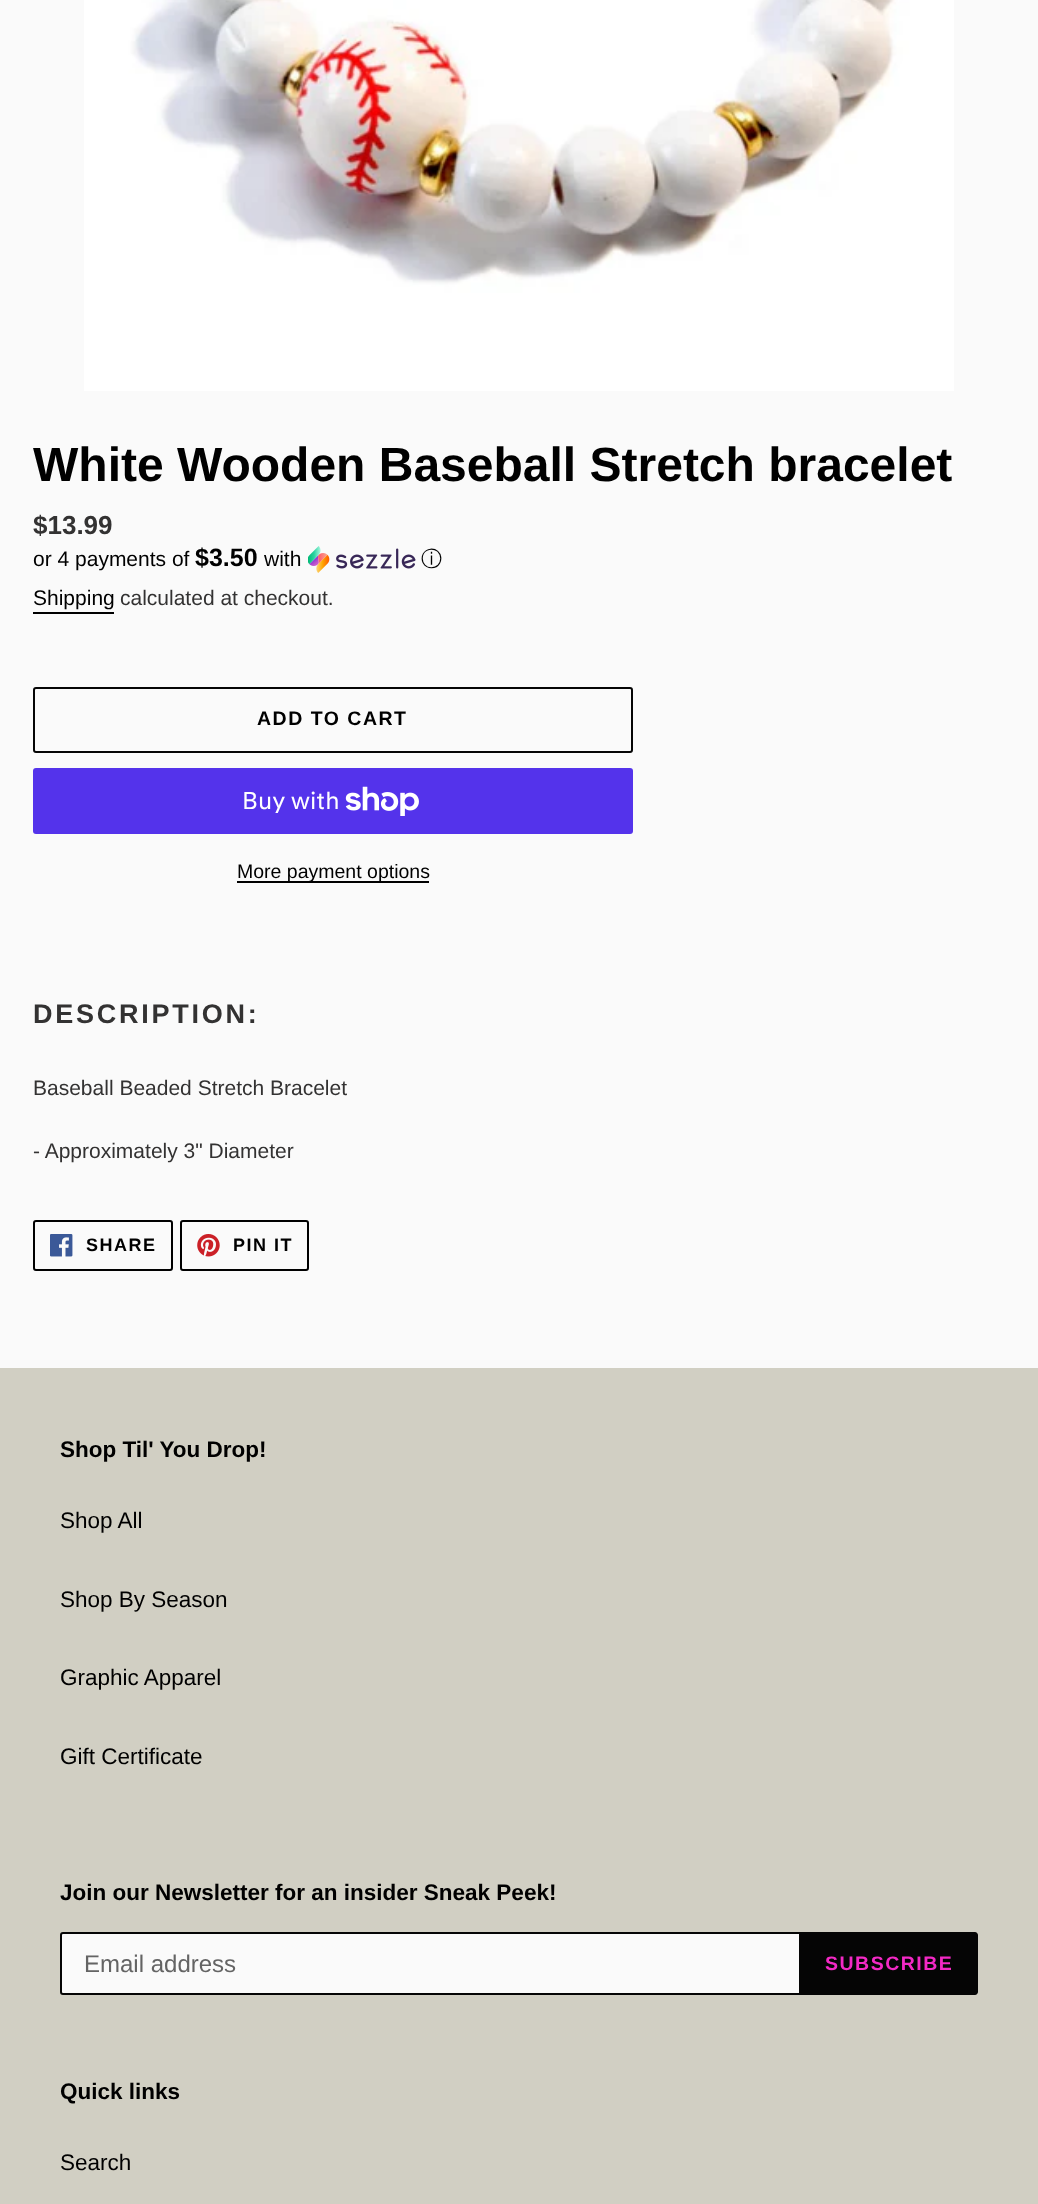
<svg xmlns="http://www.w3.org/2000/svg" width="1038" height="2204">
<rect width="100%" height="100%" fill="#fafafa"/>
<image x="84" y="0" width="870" height="391" href="media/1.png"/>
<text x="33" y="481" style="font-family:Liberation Sans;font-size:48px;font-weight:bold;fill:#000">White Wooden Baseball Stretch bracelet</text>
<text x="33" y="534" style="font-family:Liberation Sans;font-size:26px;font-weight:bold;fill:#333232">$13.99</text>
<text x="33" y="566" style="font-family:Liberation Sans;font-size:21px;fill:#000">or 4 payments of</text>
<text x="195" y="566" style="font-family:Liberation Sans;font-size:25px;font-weight:bold;fill:#000">$3.50</text>
<text x="264" y="566" style="font-family:Liberation Sans;font-size:21px;fill:#000">with</text>
<image x="308" y="546" width="108" height="27" href="media/2.png"/>
<text x="421" y="566" style="font-family:WenQuanYi Zen Hei;font-size:21px;font-weight:500;fill:#000">ⓘ</text>
<text x="33" y="605" style="font-family:Liberation Sans;font-size:21px;fill:#000">Shipping</text>
<rect x="33" y="612" width="81" height="2" fill="#000"/>
<text x="120" y="605" style="font-family:Liberation Sans;font-size:21px;fill:#333232">calculated at checkout.</text>
<rect x="34" y="688" width="598" height="64" rx="2" fill="none" stroke="#050505" stroke-width="2"/>
<text x="257" y="725" style="font-family:Liberation Sans;font-size:19.5px;font-weight:bold;letter-spacing:1.5px;fill:#000">ADD TO CART</text>
<rect x="33" y="768" width="600" height="66" rx="3" fill="#5433eb"/>
<text x="242" y="809" style="font-family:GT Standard;font-size:24px;fill:#fff">Buy with</text>
<image x="345" y="786" width="74" height="30" href="media/3.png"/>
<rect x="237" y="881" width="192" height="2" fill="#000"/>
<text x="237" y="878" style="font-family:Liberation Sans;font-size:19.5px;fill:#000">More payment options</text>
<text x="33" y="1023" style="font-family:Liberation Sans;font-size:27px;font-weight:bold;letter-spacing:2.75px;fill:#333232">DESCRIPTION:</text>
<text x="33" y="1095" style="font-family:Liberation Sans;font-size:21px;fill:#333232">Baseball Beaded Stretch Bracelet</text>
<text x="33" y="1158" style="font-family:Liberation Sans;font-size:21px;fill:#333232">- Approximately 3" Diameter</text>
<rect x="34" y="1221" width="138" height="49" rx="2" fill="none" stroke="#000" stroke-width="2"/>
<image x="50" y="1234" width="23" height="23" href="media/4.png"/>
<text x="86" y="1251" style="font-family:Liberation Sans;font-size:18px;font-weight:bold;letter-spacing:1.5px;fill:#000">SHARE</text>
<rect x="181" y="1221" width="127" height="49" rx="2" fill="none" stroke="#000" stroke-width="2"/>
<image x="197" y="1234" width="23" height="23" href="media/5.png"/>
<text x="233" y="1251" style="font-family:Liberation Sans;font-size:18px;font-weight:bold;letter-spacing:1.5px;fill:#000">PIN IT</text>
<rect y="1368" width="1038" height="836" fill="#d1cfc3"/>
<text x="60" y="1457" style="font-family:Liberation Sans;font-size:22.5px;font-weight:bold;fill:#000">Shop Til' You Drop!</text>
<text x="60" y="1528" style="font-family:Liberation Sans;font-size:22.5px;fill:#000">Shop All</text>
<text x="60" y="1607" style="font-family:Liberation Sans;font-size:22.5px;fill:#000">Shop By Season</text>
<text x="60" y="1685" style="font-family:Liberation Sans;font-size:22.5px;fill:#000">Graphic Apparel</text>
<text x="60" y="1764" style="font-family:Liberation Sans;font-size:22.5px;fill:#000">Gift Certificate</text>
<text x="60" y="1900" style="font-family:Liberation Sans;font-size:22.5px;font-weight:bold;fill:#000">Join our Newsletter for an insider Sneak Peek!</text>
<path d="M63 1933h737v61h-737c-1 0-2-1-2-2v-57c0-1 1-2 2-2z" fill="#fafafa" stroke="#050505" stroke-width="2"/>
<text x="84" y="1972" style="font-family:Liberation Sans;font-size:24px;fill:#646464">Email address</text>
<path d="M801 1932h174c1.5 0 3 1.5 3 3v57c0 1.5-1.5 3-3 3h-174z" fill="#050505"/>
<text x="825" y="1970" style="font-family:Liberation Sans;font-size:19.5px;font-weight:bold;letter-spacing:1.5px;fill:#f329c5">SUBSCRIBE</text>
<text x="60" y="2099" style="font-family:Liberation Sans;font-size:22.5px;font-weight:bold;fill:#000">Quick links</text>
<text x="60" y="2170" style="font-family:Liberation Sans;font-size:22.5px;fill:#000">Search</text>
</svg>
